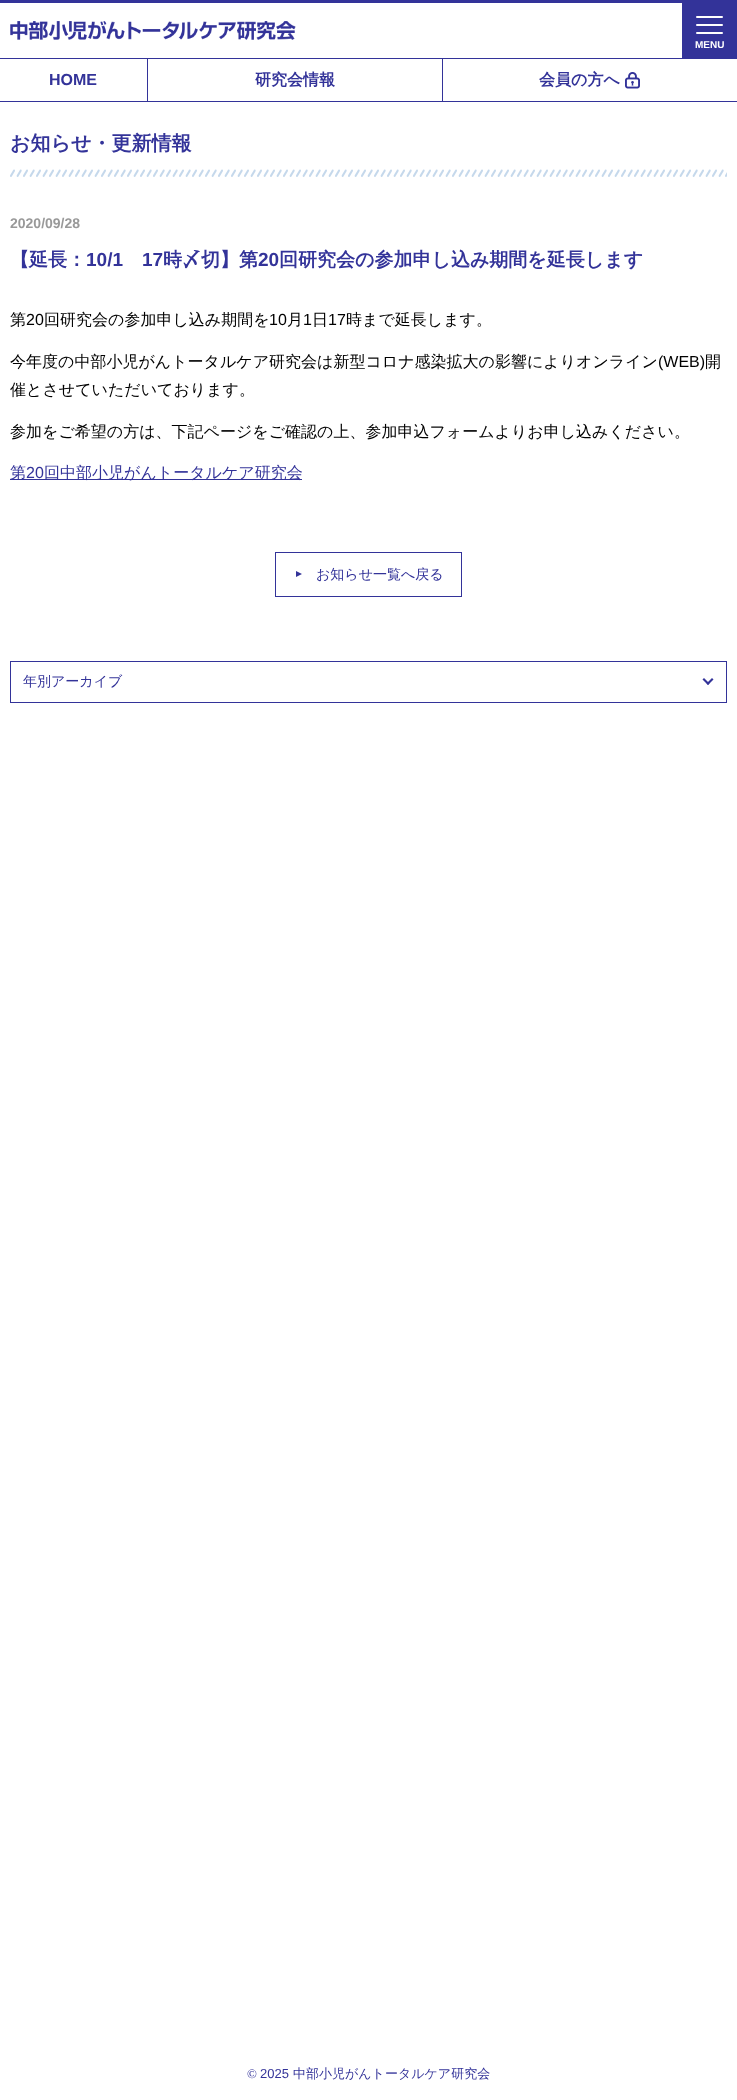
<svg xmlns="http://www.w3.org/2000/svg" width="737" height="2100">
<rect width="100%" height="100%" fill="#fff"/>
<rect width="737" height="3" fill="#339"/>
<image x="10" y="21" width="286" height="19" href="media/1.png"/>
<rect x="682" y="3" width="55" height="55" fill="#339"/>
<rect x="696" y="24" width="27" height="2" rx="1" fill="#fff"/>
<rect x="696" y="16" width="27" height="2" rx="1" fill="#fff"/>
<rect x="696" y="32" width="27" height="2" rx="1" fill="#fff"/>
<text x="695" y="48" style="font-family:Liberation Sans;font-size:10px;font-weight:bold;fill:#fff">MENU</text>
<rect y="58" width="737" height="1" fill="#339"/>
<rect y="101" width="737" height="1" fill="#339"/>
<rect x="147" y="59" width="1" height="42" fill="#339"/>
<text x="49" y="85" style="font-family:Liberation Sans;font-size:16px;font-weight:bold;fill:#339">HOME</text>
<rect x="442" y="59" width="1" height="42" fill="#339"/>
<text x="255" y="85" style="font-family:WenQuanYi Zen Hei;font-size:16px;font-weight:bold;fill:#339">研究会情報</text>
<text x="539" y="85" style="font-family:WenQuanYi Zen Hei;font-size:16px;font-weight:bold;fill:#339">会員の方へ</text>
<image x="625" y="72" width="15" height="17" href="media/2.png"/>
<image x="10" y="169" width="717" height="8" href="media/3.png"/>
<text x="10" y="150" style="font-family:WenQuanYi Zen Hei;font-size:20px;font-weight:bold;fill:#339">お知らせ・更新情報</text>
<text x="10" y="228" style="font-family:Liberation Sans;font-size:14px;font-weight:bold;fill:#999">2020/09/28</text>
<text x="10" y="266" style="font-family:WenQuanYi Zen Hei;font-size:19px;font-weight:bold;fill:#339">【延長：</text>
<text x="86" y="266" style="font-family:Liberation Sans;font-size:19px;font-weight:bold;fill:#339">10/1</text>
<text x="142" y="266" style="font-family:Liberation Sans;font-size:19px;font-weight:bold;fill:#339">17</text>
<text x="163" y="266" style="font-family:WenQuanYi Zen Hei;font-size:19px;font-weight:bold;fill:#339">時〆切】第</text>
<text x="258" y="266" style="font-family:Liberation Sans;font-size:19px;font-weight:bold;fill:#339">20</text>
<text x="279" y="266" style="font-family:WenQuanYi Zen Hei;font-size:19px;font-weight:bold;fill:#339">回研究会の参加申し込み期間を延長します</text>
<text x="10" y="325" style="font-family:WenQuanYi Zen Hei;font-size:16px;font-weight:500;fill:#000">第</text>
<text x="26" y="325" style="font-family:Liberation Sans;font-size:16px;fill:#000">20</text>
<text x="44" y="325" style="font-family:WenQuanYi Zen Hei;font-size:16px;font-weight:500;fill:#000">回研究会の参加申し込み期間を</text>
<text x="269" y="325" style="font-family:Liberation Sans;font-size:16px;fill:#000">10</text>
<text x="287" y="325" style="font-family:WenQuanYi Zen Hei;font-size:16px;font-weight:500;fill:#000">月</text>
<text x="303" y="325" style="font-family:Liberation Sans;font-size:16px;fill:#000">1</text>
<text x="312" y="325" style="font-family:WenQuanYi Zen Hei;font-size:16px;font-weight:500;fill:#000">日</text>
<text x="328" y="325" style="font-family:Liberation Sans;font-size:16px;fill:#000">17</text>
<text x="346" y="325" style="font-family:WenQuanYi Zen Hei;font-size:16px;font-weight:500;fill:#000">時まで延長します。</text>
<text x="10" y="367" style="font-family:WenQuanYi Zen Hei;font-size:16px;font-weight:500;fill:#000">今年度の中部小児がんトータルケア研究会は新型コロナ感染拡大の影響によりオンライン</text>
<text x="658" y="367" style="font-family:Liberation Sans;font-size:16px;fill:#000">(WEB)</text>
<text x="705" y="367" style="font-family:WenQuanYi Zen Hei;font-size:16px;font-weight:500;fill:#000">開</text>
<text x="10" y="395" style="font-family:WenQuanYi Zen Hei;font-size:16px;font-weight:500;fill:#000">催とさせていただいております。</text>
<text x="10" y="437" style="font-family:WenQuanYi Zen Hei;font-size:16px;font-weight:500;fill:#000">参加をご希望の方は、下記ページをご確認の上、参加申込フォームよりお申し込みください。</text>
<rect x="10" y="479" width="292" height="1" fill="#339"/>
<text x="10" y="478" style="font-family:WenQuanYi Zen Hei;font-size:16px;font-weight:500;fill:#339">第</text>
<text x="26" y="478" style="font-family:Liberation Sans;font-size:16px;fill:#339">20</text>
<text x="44" y="478" style="font-family:WenQuanYi Zen Hei;font-size:16px;font-weight:500;fill:#339">回中部小児がんトータルケア研究会</text>
<rect x="275.5" y="552.5" width="186" height="44" fill="none" stroke="#339"/>
<path d="M296 577v-6l6 3z" fill="#339"/>
<text x="316" y="579" style="font-family:WenQuanYi Zen Hei;font-size:14px;font-weight:500;fill:#339">お知らせ一覧へ戻る</text>
<rect x="10.5" y="661.5" width="716" height="41" fill="none" stroke="#339"/>
<text x="23" y="686" style="font-family:WenQuanYi Zen Hei;font-size:14px;font-weight:500;fill:#339">年別アーカイブ</text>
<path d="M712 678l1.5 1.5l-5.5 5.5l-1.5-1.5z" fill="#339"/>
<path d="M704 678l5.5 5.5l-1.5 1.5l-5.5-5.5z" fill="#339"/>
<text x="247" y="2078" style="font-family:Liberation Serif;font-size:13px;fill:#339">©</text>
<text x="260" y="2078" style="font-family:Liberation Sans;font-size:13px;fill:#339">2025</text>
<text x="293" y="2078" style="font-family:WenQuanYi Zen Hei;font-size:13px;font-weight:500;fill:#339">中部小児がんトータルケア研究会</text>
</svg>
